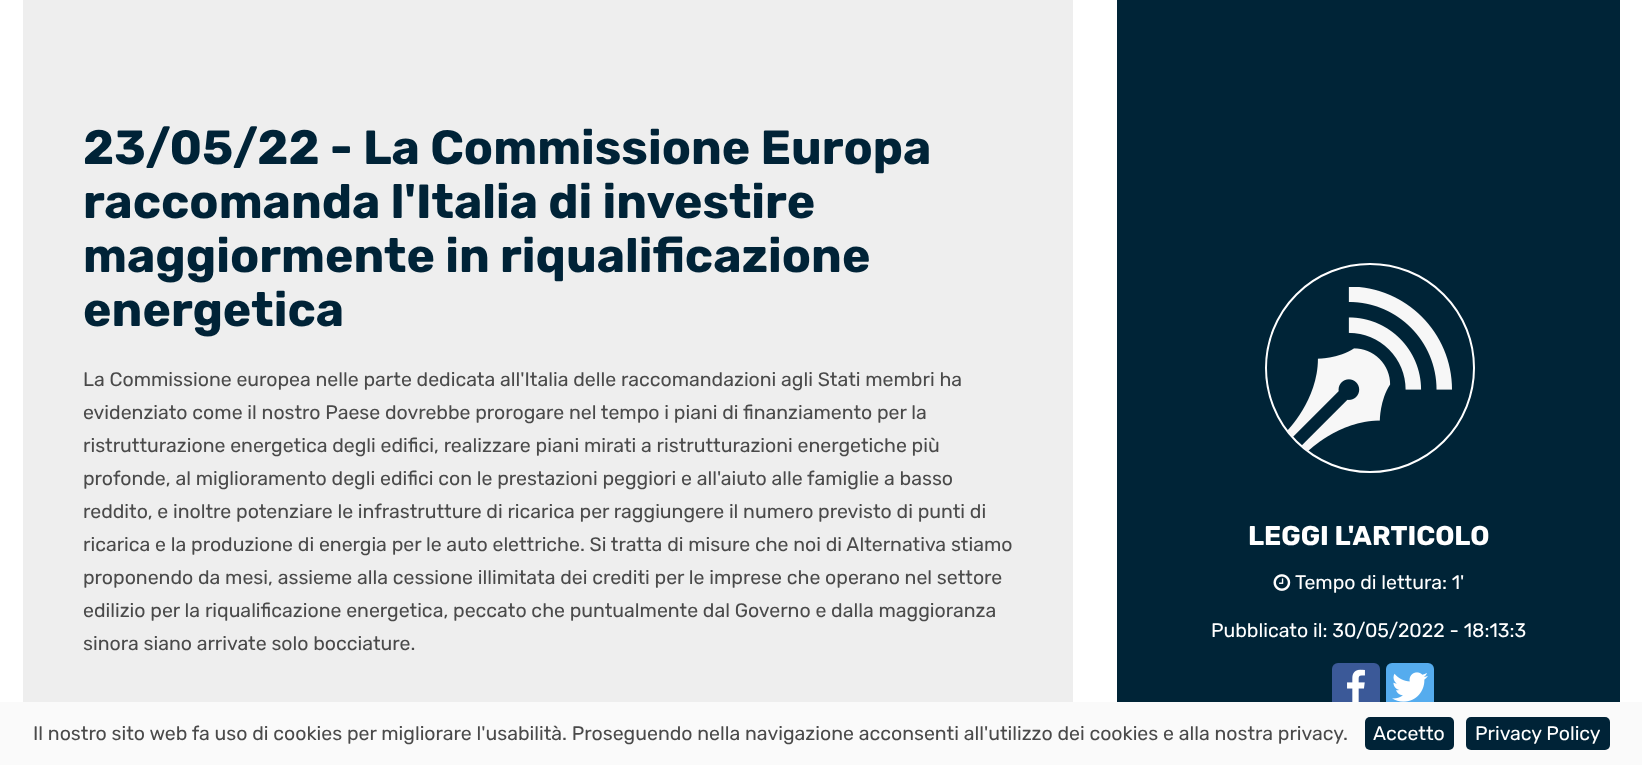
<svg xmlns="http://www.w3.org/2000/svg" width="1642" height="765">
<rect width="100%" height="100%" fill="#fff"/>
<rect x="23" width="1050" height="702" fill="#eee"/>
<text x="83" y="164" style="font-family:Rubik;font-size:48px;font-weight:bold;fill:#002337">23/05/22 - La Commissione Europa</text>
<text x="83" y="218" style="font-family:Rubik;font-size:48px;font-weight:bold;fill:#002337">raccomanda l'Italia di investire</text>
<text x="83" y="272" style="font-family:Rubik;font-size:48px;font-weight:bold;fill:#002337">maggiormente in riqualificazione</text>
<text x="83" y="326" style="font-family:Rubik;font-size:48px;font-weight:bold;fill:#002337">energetica</text>
<text x="83" y="386" style="font-family:Rubik;font-size:19.5px;fill:#4a4a4a">La Commissione europea nelle parte dedicata all'Italia delle raccomandazioni agli Stati membri ha</text>
<text x="83" y="419" style="font-family:Rubik;font-size:19.5px;fill:#4a4a4a">evidenziato come il nostro Paese dovrebbe prorogare nel tempo i piani di finanziamento per la</text>
<text x="83" y="452" style="font-family:Rubik;font-size:19.5px;fill:#4a4a4a">ristrutturazione energetica degli edifici, realizzare piani mirati a ristrutturazioni energetiche più</text>
<text x="83" y="485" style="font-family:Rubik;font-size:19.5px;fill:#4a4a4a">profonde, al miglioramento degli edifici con le prestazioni peggiori e all'aiuto alle famiglie a basso</text>
<text x="83" y="518" style="font-family:Rubik;font-size:19.5px;fill:#4a4a4a">reddito, e inoltre potenziare le infrastrutture di ricarica per raggiungere il numero previsto di punti di</text>
<text x="83" y="551" style="font-family:Rubik;font-size:19.5px;fill:#4a4a4a">ricarica e la produzione di energia per le auto elettriche. Si tratta di misure che noi di Alternativa stiamo</text>
<text x="83" y="584" style="font-family:Rubik;font-size:19.5px;fill:#4a4a4a">proponendo da mesi, assieme alla cessione illimitata dei crediti per le imprese che operano nel settore</text>
<text x="83" y="617" style="font-family:Rubik;font-size:19.5px;fill:#4a4a4a">edilizio per la riqualificazione energetica, peccato che puntualmente dal Governo e dalla maggioranza</text>
<text x="83" y="650" style="font-family:Rubik;font-size:19.5px;fill:#4a4a4a">sinora siano arrivate solo bocciature.</text>
<rect x="1117" width="503" height="702" fill="#002437"/>
<circle cx="1370" cy="368" r="104" fill="none" stroke="#fff" stroke-width="2"/>
<image x="1288" y="287" width="164" height="164" href="media/1.png"/>
<text x="1248" y="545" style="font-family:Rubik;font-size:27px;font-weight:bold;fill:#fff">LEGGI L'ARTICOLO</text>
<image x="1273" y="574" width="18" height="17" href="media/2.png"/>
<text x="1295" y="589" style="font-family:Rubik;font-size:19.5px;fill:#fff">Tempo di lettura: 1'</text>
<text x="1211" y="637" style="font-family:Rubik;font-size:19.5px;fill:#fff">Pubblicato il: 30/05/2022 - 18:13:3</text>
<rect x="1332" y="663" width="48" height="48" rx="6" fill="#3b5998"/>
<image x="1347" y="669" width="18" height="33" href="media/3.png"/>
<rect x="1386" y="663" width="48" height="48" rx="6" fill="#55acee"/>
<image x="1392" y="672" width="36" height="30" href="media/4.png"/>
<rect y="702" width="1642" height="63" fill="#fafafa"/>
<text x="33" y="740" style="font-family:Rubik;font-size:19.5px;fill:#4a4a4a">Il nostro sito web fa uso di cookies per migliorare l'usabilità. Proseguendo nella navigazione acconsenti all'utilizzo dei cookies e alla nostra privacy.</text>
<rect x="1365" y="717" width="89" height="33" rx="5" fill="#002337"/>
<text x="1373" y="740" style="font-family:Rubik;font-size:19.5px;fill:#fff">Accetto</text>
<rect x="1466" y="717" width="144" height="33" rx="5" fill="#002337"/>
<text x="1475" y="740" style="font-family:Rubik;font-size:19.5px;fill:#fff">Privacy Policy</text>
</svg>
